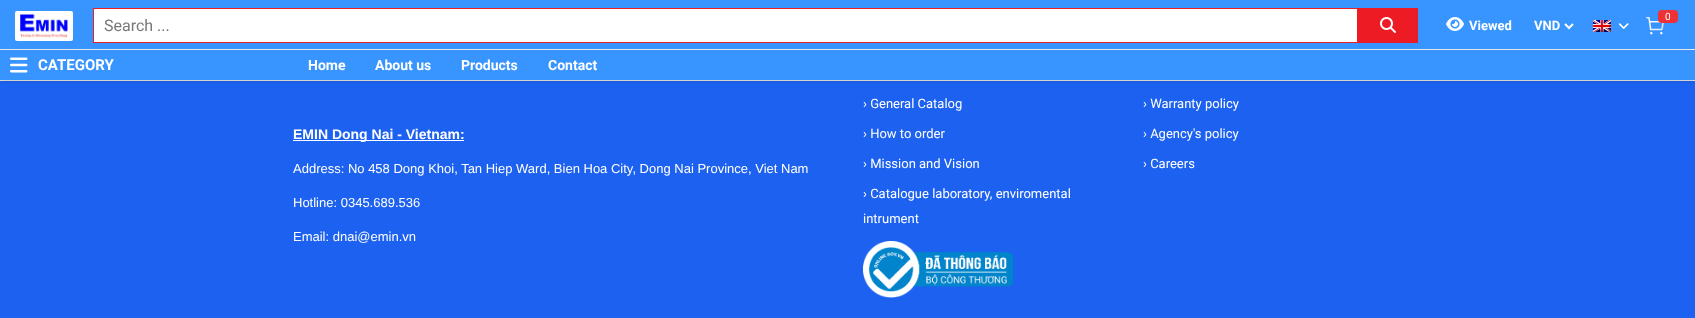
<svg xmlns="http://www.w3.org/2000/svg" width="1695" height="318">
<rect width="100%" height="100%" fill="#1d61f0"/>
<rect y="80" width="1695" height="1" fill="#e8e8e8"/>
<rect y="50" width="1695" height="30" fill="#00000036" filter="blur(2.5px)"/>
<rect width="1695" height="49" fill="#3894ff"/>
<rect y="49" width="1695" height="1" fill="#e7e7e7"/>
<rect x="15" y="11" width="58" height="30" rx="2" fill="#fff"/>
<image x="20" y="14" width="48" height="24" href="media/1.png"/>
<rect x="94" y="9" width="1263" height="33" fill="#fff"/>
<rect x="93" y="8" width="1265" height="1" fill="#ed1d25"/>
<rect x="1357" y="8" width="1" height="35" fill="#ed1d25"/>
<rect x="93" y="42" width="1265" height="1" fill="#ed1d25"/>
<rect x="93" y="8" width="1" height="35" fill="#ed1d25"/>
<text x="104" y="31" style="font-family:Roboto;font-size:16px;fill:#777">Search ...</text>
<rect x="1358" y="8" width="60" height="35" fill="#ed1c24"/>
<image x="1380" y="17" width="16" height="16" href="media/2.png"/>
<image x="1645" y="16" width="20" height="19" href="media/3.png"/>
<rect x="1658" y="10" width="20" height="13" rx="4" fill="#ed3237"/>
<text x="1665" y="20" style="font-family:Roboto;font-size:10px;fill:#fff">0</text>
<image x="1446" y="17" width="18" height="14" href="media/4.png"/>
<text x="1469" y="30" style="font-family:Roboto;font-size:13px;font-weight:bold;fill:#fff">Viewed</text>
<path d="M1565 24l4 4l4-4" fill="none" stroke="#fff" stroke-width="2"/>
<text x="1534" y="30" style="font-family:Roboto;font-size:13px;font-weight:bold;fill:#fff">VND</text>
<image x="1593" y="20" width="18" height="12" href="media/5.png"/>
<image x="1618" y="23" width="11" height="6" href="media/6.png"/>
<rect y="50" width="1695" height="30" fill="#3894ff"/>
<image x="10" y="57" width="18" height="16" href="media/7.png"/>
<text x="38" y="70" style="font-family:Roboto;font-size:15px;font-weight:bold;fill:#fff">CATEGORY</text>
<text x="308" y="70" style="font-family:Roboto;font-size:14px;font-weight:bold;fill:#fff">Home</text>
<text x="375" y="70" style="font-family:Roboto;font-size:14px;font-weight:bold;fill:#fff">About us</text>
<text x="461" y="70" style="font-family:Roboto;font-size:14px;font-weight:bold;fill:#fff">Products</text>
<text x="548" y="70" style="font-family:Roboto;font-size:14px;font-weight:bold;fill:#fff">Contact</text>
<rect x="293" y="140" width="171" height="1" fill="#fff"/>
<text x="293" y="139" style="font-family:Liberation Sans;font-size:14px;font-weight:bold;fill:#fff">EMIN Dong Nai - Vietnam:</text>
<text x="293" y="173" style="font-family:Liberation Sans;font-size:13px;fill:#fff">Address: No 458 Dong Khoi, Tan Hiep Ward, Bien Hoa City, Dong Nai Province, Viet Nam</text>
<text x="293" y="207" style="font-family:Liberation Sans;font-size:13px;fill:#fff">Hotline: 0345.689.536</text>
<text x="293" y="241" style="font-family:Liberation Sans;font-size:13px;fill:#fff">Email: dnai@emin.vn</text>
<text x="863" y="108" style="font-family:Roboto;font-size:13px;fill:#fff">› General Catalog</text>
<text x="1143" y="108" style="font-family:Roboto;font-size:13px;fill:#fff">› Warranty policy</text>
<text x="863" y="138" style="font-family:Roboto;font-size:13px;fill:#fff">› How to order</text>
<text x="1143" y="138" style="font-family:Roboto;font-size:13px;fill:#fff">› Agency's policy</text>
<text x="863" y="168" style="font-family:Roboto;font-size:13px;fill:#fff">› Mission and Vision</text>
<text x="1143" y="168" style="font-family:Roboto;font-size:13px;fill:#fff">› Careers</text>
<text x="863" y="198" style="font-family:Roboto;font-size:13px;fill:#fff">› Catalogue laboratory, enviromental</text>
<text x="863" y="223" style="font-family:Roboto;font-size:13px;fill:#fff">intrument</text>
<image x="863" y="241" width="150" height="57" href="media/8.png"/>
</svg>
